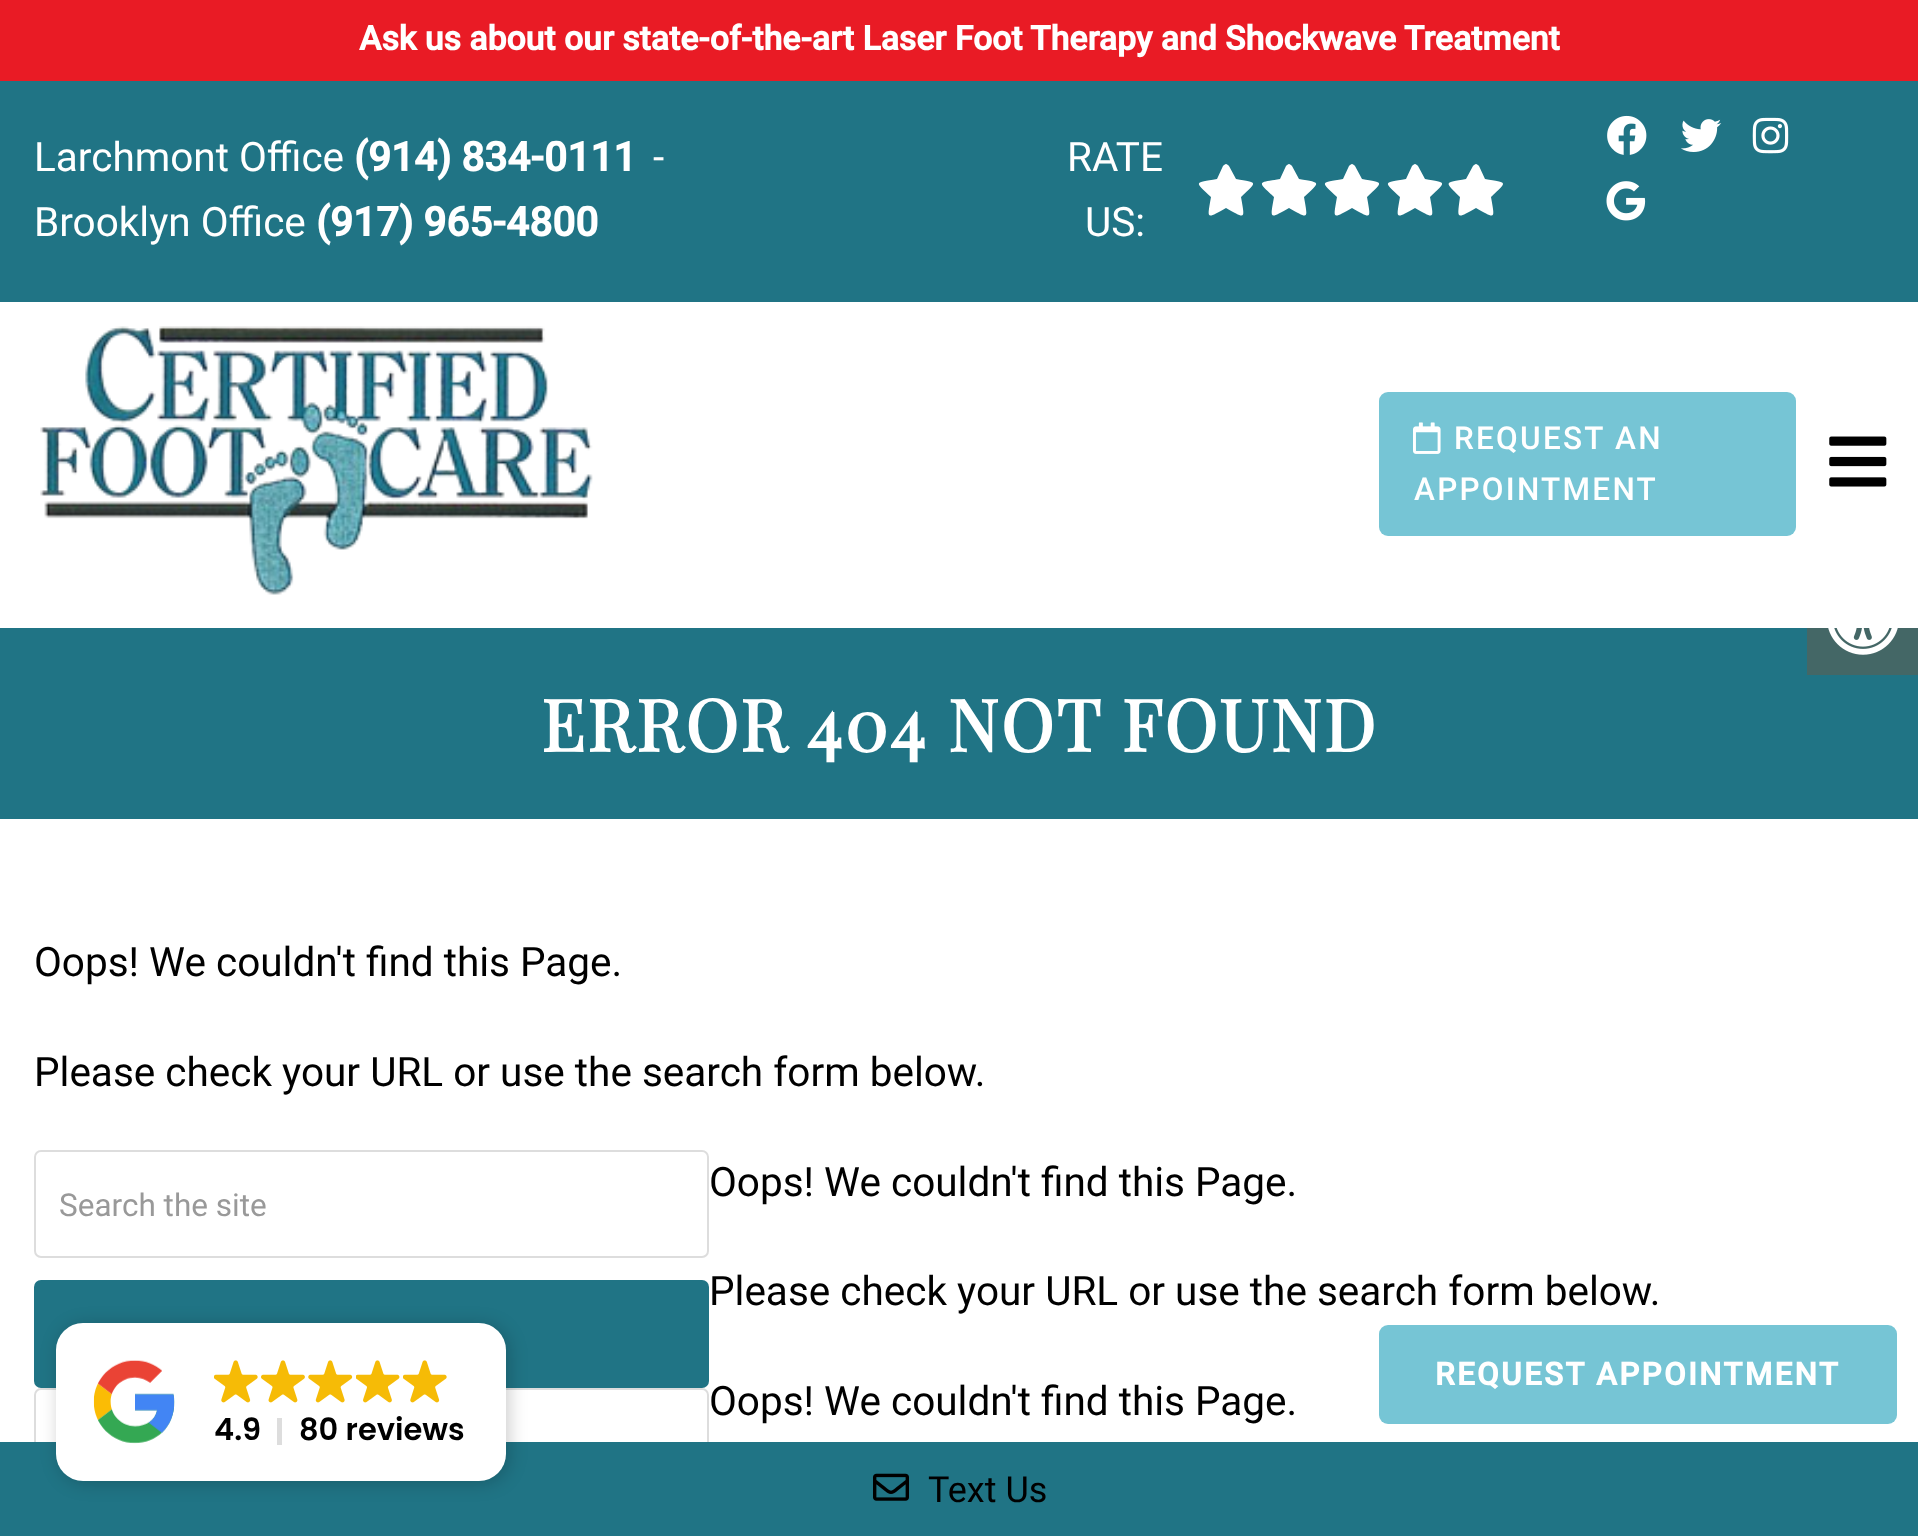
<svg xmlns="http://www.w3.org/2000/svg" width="1918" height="1536">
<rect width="100%" height="100%" fill="#fff"/>
<rect width="1918" height="81" fill="#e91b25"/>
<text x="359" y="50" style="font-family:Roboto;font-size:33.75px;font-weight:bold;fill:#fff">Ask us about our state-of-the-art Laser Foot Therapy and Shockwave Treatment</text>
<rect y="81" width="1918" height="221" fill="#207485"/>
<text x="34" y="171" style="font-family:Roboto;font-size:40.5px;fill:#fff">Larchmont Office</text>
<text x="354" y="171" style="font-family:Roboto;font-size:40.5px;font-weight:bold;fill:#fff">(914) 834-0111</text>
<text x="653" y="171" style="font-family:Roboto;font-size:40.5px;fill:#fff">-</text>
<text x="34" y="236" style="font-family:Roboto;font-size:40.5px;fill:#fff">Brooklyn Office</text>
<text x="316" y="236" style="font-family:Roboto;font-size:40.5px;font-weight:bold;fill:#fff">(917) 965-4800</text>
<text x="1067" y="171" style="font-family:Roboto;font-size:40.5px;fill:#fff">RATE</text>
<text x="1085" y="236" style="font-family:Roboto;font-size:40.5px;fill:#fff">US:</text>
<path d="M1223 166c1-1 2-2 3-2c1 0 2 1 3 2l7 13c22 4 22 2 5 18c4 23 5 22-15 11c-20 11-19 12-15-11c-17-16-17-14 6-18z" fill="#fff"/>
<path d="M1286 166c1-1 2-2 3-2c1 0 2 1 3 2l7 13c22 4 22 2 5 18c4 23 5 22-15 11c-20 11-19 12-15-11c-17-16-17-14 6-18z" fill="#fff"/>
<path d="M1349 166c1-1 2-2 3-2c1 0 2 1 3 2l7 13c22 4 22 2 5 18c4 23 5 22-15 11c-20 11-19 12-15-11c-17-16-17-14 6-18z" fill="#fff"/>
<path d="M1412 166c1-1 2-2 3-2c1 0 2 1 3 2l7 13c22 4 22 2 5 18c4 23 5 22-15 11c-20 11-19 12-15-11c-17-16-17-14 6-18z" fill="#fff"/>
<path d="M1473 166c1-1 2-2 3-2c1 0 2 1 3 2l6 13c23 4 23 2 6 18c4 23 5 22-15 11c-20 11-19 12-16-11c-16-16-16-14 6-18z" fill="#fff"/>
<image x="1607" y="115" width="40" height="40" href="media/1.png"/>
<image x="1681" y="119" width="41" height="33" href="media/2.png"/>
<image x="1752" y="117" width="37" height="37" href="media/3.png"/>
<image x="1606" y="181" width="40" height="40" href="media/4.png"/>
<image x="40" y="326" width="553" height="269" href="media/5.png"/>
<rect x="1379" y="392" width="417" height="144" rx="9" fill="#76c5d5"/>
<image x="1413" y="422" width="28" height="32" href="media/6.png"/>
<text x="1454" y="449" style="font-family:Roboto;font-size:31.5px;font-weight:500;letter-spacing:2.25px;fill:#fff">REQUEST AN</text>
<text x="1414" y="500" style="font-family:Roboto;font-size:31.5px;font-weight:500;letter-spacing:2.25px;fill:#fff">APPOINTMENT</text>
<image x="1829" y="436" width="58" height="51" href="media/7.png"/>
<rect y="628" width="1918" height="191" fill="#207485"/>
<text x="541" y="752" style="font-family:Playfair Display;font-size:72px;font-weight:bold;letter-spacing:2.25px;fill:#fff">ERROR 404 NOT FOUND</text>
<text x="34" y="976" style="font-family:Roboto;font-size:40.5px;fill:#000">Oops! We couldn't find this Page.</text>
<text x="34" y="1086" style="font-family:Roboto;font-size:40.5px;fill:#000">Please check your URL or use the search form below.</text>
<rect x="35" y="1151" width="673" height="106" rx="6" fill="none" stroke="#ddd" stroke-width="2"/>
<text x="59" y="1216" style="font-family:Roboto;font-size:31.5px;fill:#999">Search the site</text>
<rect x="34" y="1280" width="675" height="108" rx="7" fill="#207485"/>
<text x="709" y="1196" style="font-family:Roboto;font-size:40.5px;fill:#000">Oops! We couldn't find this Page.</text>
<text x="709" y="1305" style="font-family:Roboto;font-size:40.5px;fill:#000">Please check your URL or use the search form below.</text>
<rect x="35" y="1389" width="673" height="106" rx="6" fill="none" stroke="#ddd" stroke-width="2"/>
<text x="709" y="1415" style="font-family:Roboto;font-size:40.5px;fill:#000">Oops! We couldn't find this Page.</text>
<rect x="1379" y="1325" width="518" height="99" rx="9" fill="#76c5d5"/>
<text x="1435" y="1385" style="font-family:Roboto;font-size:31.5px;font-weight:bold;letter-spacing:2.25px;fill:#fff">REQUEST APPOINTMENT</text>
<rect x="1807" y="628" width="111" height="47" fill="#446766"/>
<image x="1828" y="628" width="70" height="27" href="media/8.png"/>
<rect y="1442" width="1918" height="94" fill="#207485"/>
<rect x="59" y="1325" width="450" height="158" rx="27" fill="#00000033" filter="blur(9px)"/>
<rect x="56" y="1323" width="450" height="158" rx="27" fill="#fff"/>
<image x="93" y="1360" width="82" height="84" href="media/9.png"/>
<image x="214" y="1360" width="44" height="43" href="media/10.png"/>
<image x="261" y="1360" width="44" height="43" href="media/11.png"/>
<image x="308" y="1360" width="45" height="43" href="media/12.png"/>
<image x="356" y="1360" width="44" height="43" href="media/13.png"/>
<image x="403" y="1360" width="44" height="43" href="media/10.png"/>
<rect x="277" y="1418" width="5" height="27" fill="#ddd"/>
<text x="214" y="1440" style="font-family:Poppins;font-size:30.5px;font-weight:600;fill:#000">4.9</text>
<text x="299" y="1440" style="font-family:Poppins;font-size:30.5px;font-weight:600;fill:#000">80 reviews</text>
<image x="873" y="1473" width="36" height="28" href="media/14.png"/>
<text x="928" y="1502" style="font-family:Roboto;font-size:36px;fill:#000">Text Us</text>
</svg>
